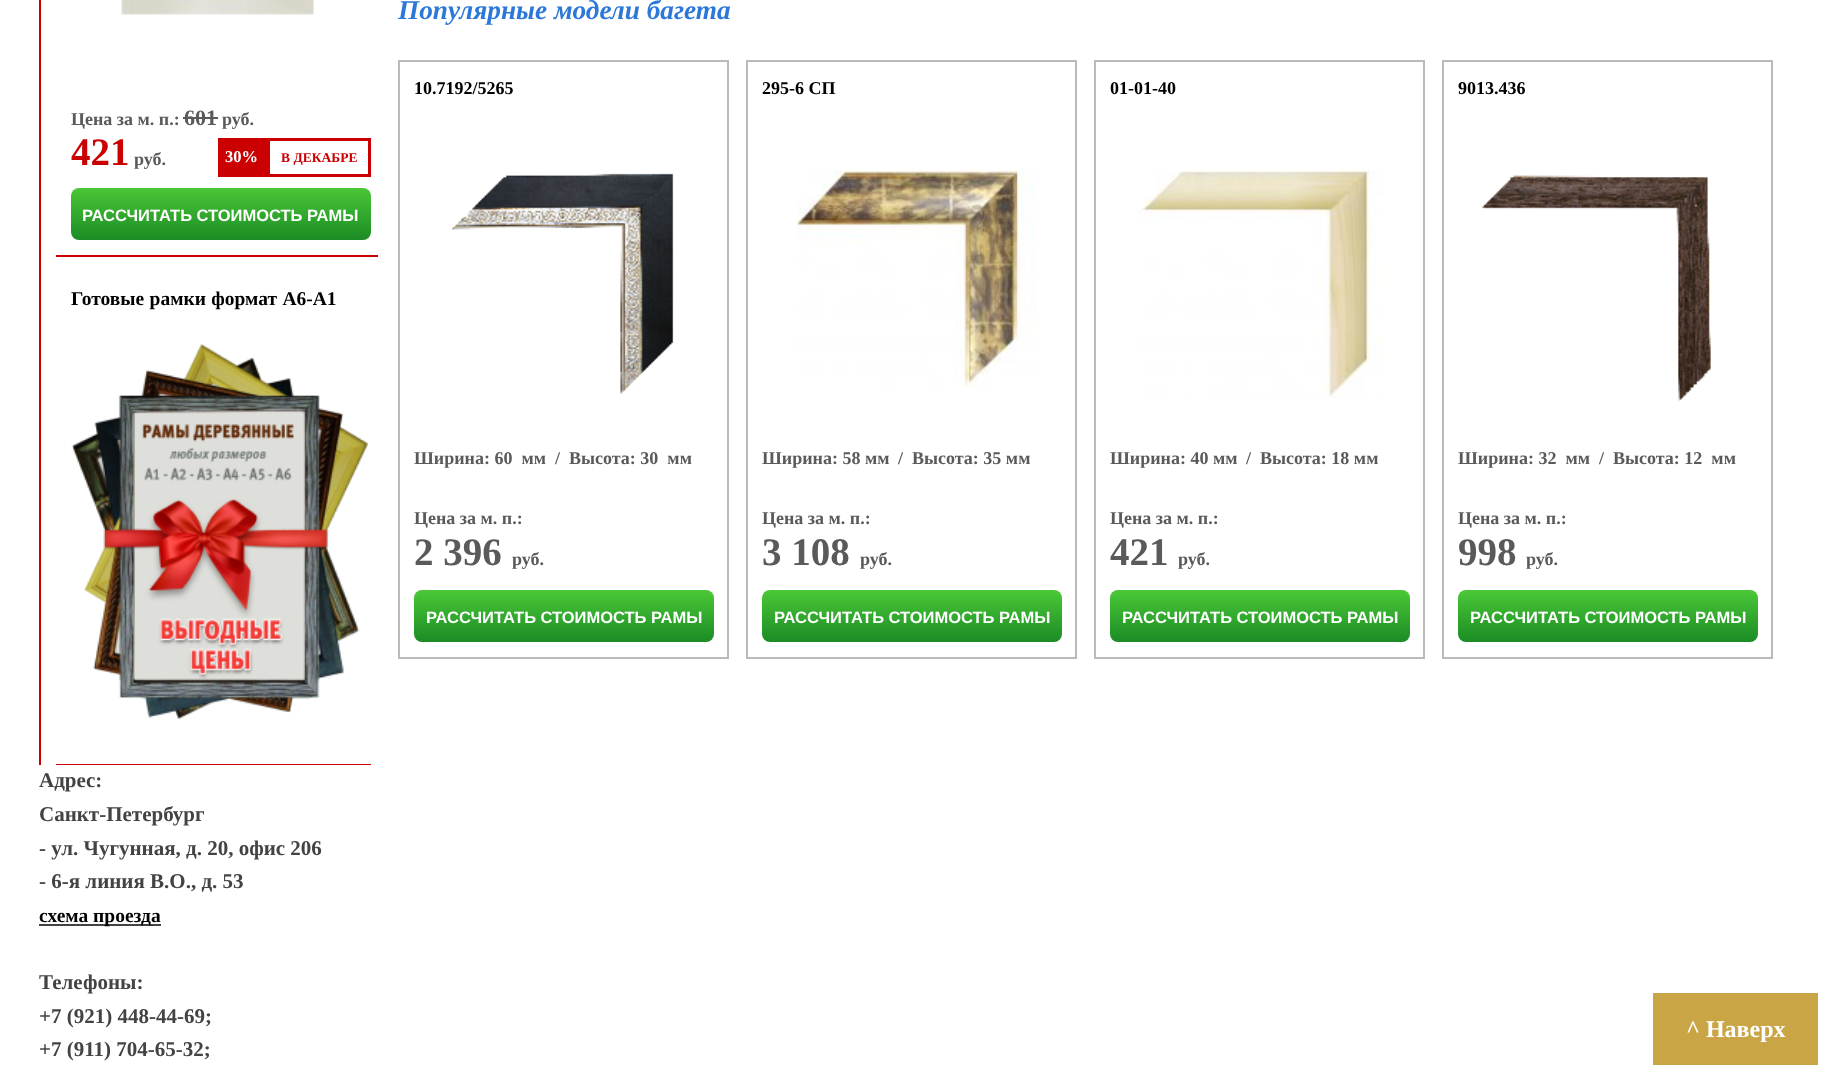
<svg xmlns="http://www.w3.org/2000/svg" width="1833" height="1079">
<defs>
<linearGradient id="g1" gradientUnits="userSpaceOnUse" x1="221" y1="187" x2="221" y2="240"><stop offset="0" stop-color="#4bc837"/><stop offset="1" stop-color="#1b8c25"/></linearGradient>
<linearGradient id="g2" gradientUnits="userSpaceOnUse" x1="564" y1="590" x2="564" y2="642"><stop offset="0" stop-color="#4bc837"/><stop offset="1" stop-color="#1b8c25"/></linearGradient>
<linearGradient id="g3" gradientUnits="userSpaceOnUse" x1="912" y1="590" x2="912" y2="642"><stop offset="0" stop-color="#4bc837"/><stop offset="1" stop-color="#1b8c25"/></linearGradient>
<linearGradient id="g4" gradientUnits="userSpaceOnUse" x1="1260" y1="590" x2="1260" y2="642"><stop offset="0" stop-color="#4bc837"/><stop offset="1" stop-color="#1b8c25"/></linearGradient>
<linearGradient id="g5" gradientUnits="userSpaceOnUse" x1="1608" y1="590" x2="1608" y2="642"><stop offset="0" stop-color="#4bc837"/><stop offset="1" stop-color="#1b8c25"/></linearGradient>
</defs>
<rect width="100%" height="100%" fill="#fff"/>
<rect x="39" width="2" height="765" fill="#c80000"/>
<rect x="56" y="255" width="322" height="2" fill="#c80000"/>
<image x="121" y="0" width="193" height="15" href="media/1.png"/>
<text x="71" y="125" style="font-family:Liberation Serif;font-size:18px;font-weight:bold;fill:#5a5a5a">Цена за м. п.:</text>
<text x="184" y="125" style="font-family:Liberation Serif;font-size:22px;font-weight:bold;fill:#5a5a5a">601</text>
<rect x="183" y="117" width="35" height="2" fill="#5a5a5a"/>
<text x="222" y="125" style="font-family:Liberation Serif;font-size:18px;font-weight:bold;fill:#5a5a5a">руб.</text>
<text x="71" y="165" style="font-family:Liberation Serif;font-size:39px;font-weight:bold;fill:#cb0000">421</text>
<text x="134" y="165" style="font-family:Liberation Serif;font-size:18px;font-weight:bold;fill:#5a5a5a">руб.</text>
<rect x="218" y="138" width="153" height="39" fill="#cb0000"/>
<text x="225" y="162" style="font-family:Liberation Serif;font-size:16.5px;font-weight:bold;fill:#fff">30%</text>
<rect x="270" y="141" width="98" height="33" fill="#fff"/>
<text x="281" y="162" style="font-family:Liberation Serif;font-size:13.5px;font-weight:bold;fill:#cb0000">В ДЕКАБРЕ</text>
<rect x="71" y="188" width="300" height="52" rx="8" fill="url(#g1)"/>
<text x="82" y="221" style="font-family:Liberation Sans;font-size:16.5px;font-weight:bold;fill:#fff">РАССЧИТАТЬ СТОИМОСТЬ РАМЫ</text>
<text x="71" y="305" word-spacing="0.5" style="font-family:Liberation Serif;font-size:19.5px;font-weight:bold;fill:#000">Готовые рамки формат A6-A1</text>
<image x="71" y="344" width="297" height="375" href="media/2.png"/>
<rect x="56" y="764" width="315" height="1" fill="#c80000"/>
<text x="39" y="787" style="font-family:Liberation Serif;font-size:21px;font-weight:bold;fill:#434343">Адрес:</text>
<text x="39" y="821" style="font-family:Liberation Serif;font-size:21px;font-weight:bold;fill:#434343">Санкт-Петербург</text>
<text x="39" y="855" style="font-family:Liberation Serif;font-size:21px;font-weight:bold;fill:#434343">- ул. Чугунная, д. 20, офис 206</text>
<text x="39" y="888" style="font-family:Liberation Serif;font-size:21px;font-weight:bold;fill:#434343">- 6-я линия В.О., д. 53</text>
<rect x="39" y="924" width="122" height="2" fill="#434343"/>
<text x="39" y="922" style="font-family:Liberation Serif;font-size:19.5px;font-weight:bold;fill:#000">схема проезда</text>
<text x="39" y="989" style="font-family:Liberation Serif;font-size:21px;font-weight:bold;fill:#434343">Телефоны:</text>
<text x="39" y="1023" style="font-family:Liberation Serif;font-size:21px;font-weight:bold;fill:#434343">+7 (921) 448-44-69;</text>
<text x="39" y="1056" style="font-family:Liberation Serif;font-size:21px;font-weight:bold;fill:#434343">+7 (911) 704-65-32;</text>
<text x="398" y="19" style="font-family:Liberation Serif;font-size:27.25px;font-weight:bold;font-style:italic;fill:#2c78d8">Популярные модели багета</text>
<rect x="399" y="61" width="329" height="597" fill="none" stroke="#bababa" stroke-width="2"/>
<text x="414" y="94" style="font-family:Liberation Serif;font-size:18px;font-weight:bold;fill:#000">10.7192/5265</text>
<image x="452" y="173" width="222" height="221" href="media/3.png"/>
<text x="414" y="464" style="font-family:Liberation Serif;font-size:18px;font-weight:bold;fill:#5a5a5a" xml:space="preserve">Ширина: 60  мм</text>
<text x="555" y="464" style="font-family:Liberation Serif;font-size:18px;font-weight:bold;fill:#5a5a5a" xml:space="preserve">/  Высота: 30  мм</text>
<text x="414" y="524" style="font-family:Liberation Serif;font-size:18px;font-weight:bold;fill:#5a5a5a">Цена за м. п.:</text>
<text x="414" y="565" style="font-family:Liberation Serif;font-size:39px;font-weight:bold;fill:#5a5a5a">2 396</text>
<text x="512" y="565" style="font-family:Liberation Serif;font-size:18px;font-weight:bold;fill:#5a5a5a">руб.</text>
<rect x="414" y="590" width="300" height="52" rx="8" fill="url(#g2)"/>
<text x="426" y="623" style="font-family:Liberation Sans;font-size:16.5px;font-weight:bold;fill:#fff">РАССЧИТАТЬ СТОИМОСТЬ РАМЫ</text>
<rect x="747" y="61" width="329" height="597" fill="none" stroke="#bababa" stroke-width="2"/>
<text x="762" y="94" style="font-family:Liberation Serif;font-size:18px;font-weight:bold;fill:#000">295-6 СП</text>
<image x="796" y="169" width="242" height="218" href="media/4.png"/>
<text x="762" y="464" style="font-family:Liberation Serif;font-size:18px;font-weight:bold;fill:#5a5a5a">Ширина: 58 мм</text>
<text x="898" y="464" style="font-family:Liberation Serif;font-size:18px;font-weight:bold;fill:#5a5a5a" xml:space="preserve">/  Высота: 35 мм</text>
<text x="762" y="524" style="font-family:Liberation Serif;font-size:18px;font-weight:bold;fill:#5a5a5a">Цена за м. п.:</text>
<text x="762" y="565" style="font-family:Liberation Serif;font-size:39px;font-weight:bold;fill:#5a5a5a">3 108</text>
<text x="860" y="565" style="font-family:Liberation Serif;font-size:18px;font-weight:bold;fill:#5a5a5a">руб.</text>
<rect x="762" y="590" width="300" height="52" rx="8" fill="url(#g3)"/>
<text x="774" y="623" style="font-family:Liberation Sans;font-size:16.5px;font-weight:bold;fill:#fff">РАССЧИТАТЬ СТОИМОСТЬ РАМЫ</text>
<rect x="1095" y="61" width="329" height="597" fill="none" stroke="#bababa" stroke-width="2"/>
<text x="1110" y="94" style="font-family:Liberation Serif;font-size:18px;font-weight:bold;fill:#000">01-01-40</text>
<image x="1139" y="169" width="244" height="229" href="media/5.png"/>
<text x="1110" y="464" style="font-family:Liberation Serif;font-size:18px;font-weight:bold;fill:#5a5a5a">Ширина: 40 мм</text>
<text x="1246" y="464" style="font-family:Liberation Serif;font-size:18px;font-weight:bold;fill:#5a5a5a" xml:space="preserve">/  Высота: 18 мм</text>
<text x="1110" y="524" style="font-family:Liberation Serif;font-size:18px;font-weight:bold;fill:#5a5a5a">Цена за м. п.:</text>
<text x="1110" y="565" style="font-family:Liberation Serif;font-size:39px;font-weight:bold;fill:#5a5a5a">421</text>
<text x="1178" y="565" style="font-family:Liberation Serif;font-size:18px;font-weight:bold;fill:#5a5a5a">руб.</text>
<rect x="1110" y="590" width="300" height="52" rx="8" fill="url(#g4)"/>
<text x="1122" y="623" style="font-family:Liberation Sans;font-size:16.5px;font-weight:bold;fill:#fff">РАССЧИТАТЬ СТОИМОСТЬ РАМЫ</text>
<rect x="1443" y="61" width="329" height="597" fill="none" stroke="#bababa" stroke-width="2"/>
<text x="1458" y="94" style="font-family:Liberation Serif;font-size:18px;font-weight:bold;fill:#000">9013.436</text>
<image x="1482" y="175" width="229" height="227" href="media/6.png"/>
<text x="1458" y="464" style="font-family:Liberation Serif;font-size:18px;font-weight:bold;fill:#5a5a5a" xml:space="preserve">Ширина: 32  мм</text>
<text x="1599" y="464" style="font-family:Liberation Serif;font-size:18px;font-weight:bold;fill:#5a5a5a" xml:space="preserve">/  Высота: 12  мм</text>
<text x="1458" y="524" style="font-family:Liberation Serif;font-size:18px;font-weight:bold;fill:#5a5a5a">Цена за м. п.:</text>
<text x="1458" y="565" style="font-family:Liberation Serif;font-size:39px;font-weight:bold;fill:#5a5a5a">998</text>
<text x="1526" y="565" style="font-family:Liberation Serif;font-size:18px;font-weight:bold;fill:#5a5a5a">руб.</text>
<rect x="1458" y="590" width="300" height="52" rx="8" fill="url(#g5)"/>
<text x="1470" y="623" style="font-family:Liberation Sans;font-size:16.5px;font-weight:bold;fill:#fff">РАССЧИТАТЬ СТОИМОСТЬ РАМЫ</text>
<rect x="1653" y="993" width="165" height="72" fill="#caa546"/>
<text x="1686" y="1037" style="font-family:Liberation Serif;font-size:24px;font-weight:bold;fill:#fff">^ Наверх</text>
</svg>
